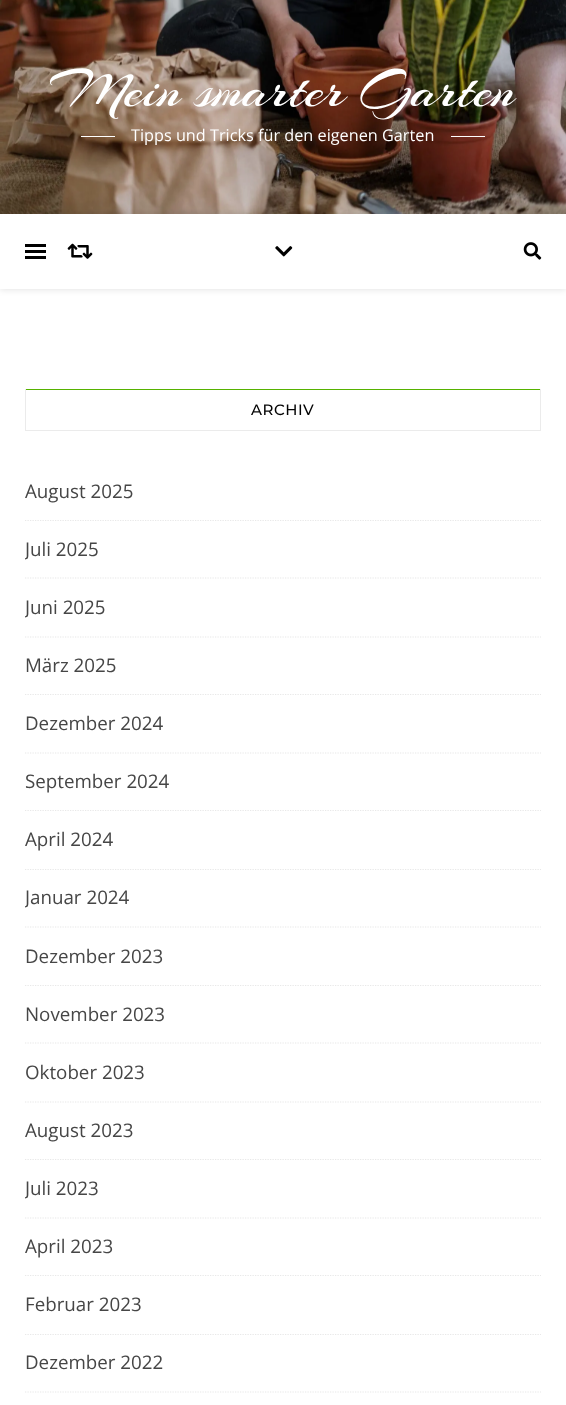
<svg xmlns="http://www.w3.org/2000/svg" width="566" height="1405">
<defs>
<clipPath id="clip1"><rect x="25" y="530" width="74" height="39"/></clipPath>
<clipPath id="clip2"><rect x="25" y="588" width="80" height="40"/></clipPath>
<clipPath id="clip3"><rect x="25" y="879" width="104" height="39"/></clipPath>
<clipPath id="clip4"><rect x="25" y="1169" width="74" height="40"/></clipPath>
</defs>
<rect width="100%" height="100%" fill="#fff"/>
<image x="0" y="0" width="566" height="214" href="media/1.png"/>
<text x="50" y="106" style="font-family:Arizonia;font-size:56.25px;fill:#fff">Mein smarter Garten</text>
<rect x="81" y="136" width="34" height="1" fill="#fff"/>
<text x="131" y="141" style="font-family:Open Sans;font-size:16.25px;fill:#fff">Tipps und Tricks für den eigenen Garten</text>
<rect x="451" y="136" width="34" height="1" fill="#fff"/>
<rect y="215" width="566" height="75" fill="#0000001a" filter="blur(3px)"/>
<rect y="214" width="566" height="75" fill="#fff"/>
<rect x="25" y="244" width="21" height="3" fill="#000"/>
<rect x="25" y="250" width="21" height="3" fill="#000"/>
<rect x="25" y="256" width="21" height="3" fill="#000"/>
<image x="67" y="243" width="26" height="16" href="media/2.png"/>
<image x="275" y="246" width="18" height="11" href="media/3.png"/>
<image x="523" y="242" width="19" height="18" href="media/4.png"/>
<rect x="25" y="389" width="516" height="1" fill="#56b200"/>
<rect x="540" y="389" width="1" height="42" fill="#ebebeb"/>
<rect x="25" y="430" width="516" height="1" fill="#ebebeb"/>
<rect x="25" y="389" width="1" height="42" fill="#ebebeb"/>
<text x="251" y="415" style="font-family:Montserrat;font-size:15px;font-weight:500;letter-spacing:0.5px;fill:#030303">ARCHIV</text>
<path d="M25 520.5h516" fill="none" stroke="#e8e8e8" stroke-width="1.2" stroke-dasharray="1.25 1.25"/>
<text x="25" y="498" style="font-family:Open Sans;font-size:18.75px;fill:#464646">August 2025</text>
<path d="M25 578h516" fill="none" stroke="#e8e8e8" stroke-width="1.2" stroke-dasharray="1.25 1.25"/>
<g clip-path="url(#clip1)">
<text x="25" y="556" style="font-family:Open Sans;font-size:18.75px;fill:#464646">Juli 2025</text>
</g>
<path d="M25 637h516" fill="none" stroke="#e8e8e8" stroke-width="1.2" stroke-dasharray="1.25 1.25"/>
<g clip-path="url(#clip2)">
<text x="25" y="614" style="font-family:Open Sans;font-size:18.75px;fill:#464646">Juni 2025</text>
</g>
<path d="M25 694.5h516" fill="none" stroke="#e8e8e8" stroke-width="1.2" stroke-dasharray="1.25 1.25"/>
<text x="25" y="672" style="font-family:Open Sans;font-size:18.75px;fill:#464646">März 2025</text>
<path d="M25 753h516" fill="none" stroke="#e8e8e8" stroke-width="1.2" stroke-dasharray="1.25 1.25"/>
<text x="25" y="730" style="font-family:Open Sans;font-size:18.75px;fill:#464646">Dezember 2024</text>
<path d="M25 810.5h516" fill="none" stroke="#e8e8e8" stroke-width="1.2" stroke-dasharray="1.25 1.25"/>
<text x="25" y="788" style="font-family:Open Sans;font-size:18.75px;fill:#464646">September 2024</text>
<path d="M25 869.5h516" fill="none" stroke="#e8e8e8" stroke-width="1.2" stroke-dasharray="1.25 1.25"/>
<text x="25" y="846" style="font-family:Open Sans;font-size:18.75px;fill:#464646">April 2024</text>
<path d="M25 927h516" fill="none" stroke="#e8e8e8" stroke-width="1.2" stroke-dasharray="1.25 1.25"/>
<g clip-path="url(#clip3)">
<text x="25" y="904" style="font-family:Open Sans;font-size:18.75px;fill:#464646">Januar 2024</text>
</g>
<path d="M25 985.5h516" fill="none" stroke="#e8e8e8" stroke-width="1.2" stroke-dasharray="1.25 1.25"/>
<text x="25" y="963" style="font-family:Open Sans;font-size:18.75px;fill:#464646">Dezember 2023</text>
<path d="M25 1043h516" fill="none" stroke="#e8e8e8" stroke-width="1.2" stroke-dasharray="1.25 1.25"/>
<text x="25" y="1021" style="font-family:Open Sans;font-size:18.75px;fill:#464646">November 2023</text>
<path d="M25 1102h516" fill="none" stroke="#e8e8e8" stroke-width="1.2" stroke-dasharray="1.25 1.25"/>
<text x="25" y="1079" style="font-family:Open Sans;font-size:18.75px;fill:#464646">Oktober 2023</text>
<path d="M25 1159.5h516" fill="none" stroke="#e8e8e8" stroke-width="1.2" stroke-dasharray="1.25 1.25"/>
<text x="25" y="1137" style="font-family:Open Sans;font-size:18.75px;fill:#464646">August 2023</text>
<path d="M25 1218h516" fill="none" stroke="#e8e8e8" stroke-width="1.2" stroke-dasharray="1.25 1.25"/>
<g clip-path="url(#clip4)">
<text x="25" y="1195" style="font-family:Open Sans;font-size:18.75px;fill:#464646">Juli 2023</text>
</g>
<path d="M25 1275.5h516" fill="none" stroke="#e8e8e8" stroke-width="1.2" stroke-dasharray="1.25 1.25"/>
<text x="25" y="1253" style="font-family:Open Sans;font-size:18.75px;fill:#464646">April 2023</text>
<path d="M25 1334.5h516" fill="none" stroke="#e8e8e8" stroke-width="1.2" stroke-dasharray="1.25 1.25"/>
<text x="25" y="1311" style="font-family:Open Sans;font-size:18.75px;fill:#464646">Februar 2023</text>
<path d="M25 1392h516" fill="none" stroke="#e8e8e8" stroke-width="1.2" stroke-dasharray="1.25 1.25"/>
<text x="25" y="1369" style="font-family:Open Sans;font-size:18.75px;fill:#464646">Dezember 2022</text>
</svg>
